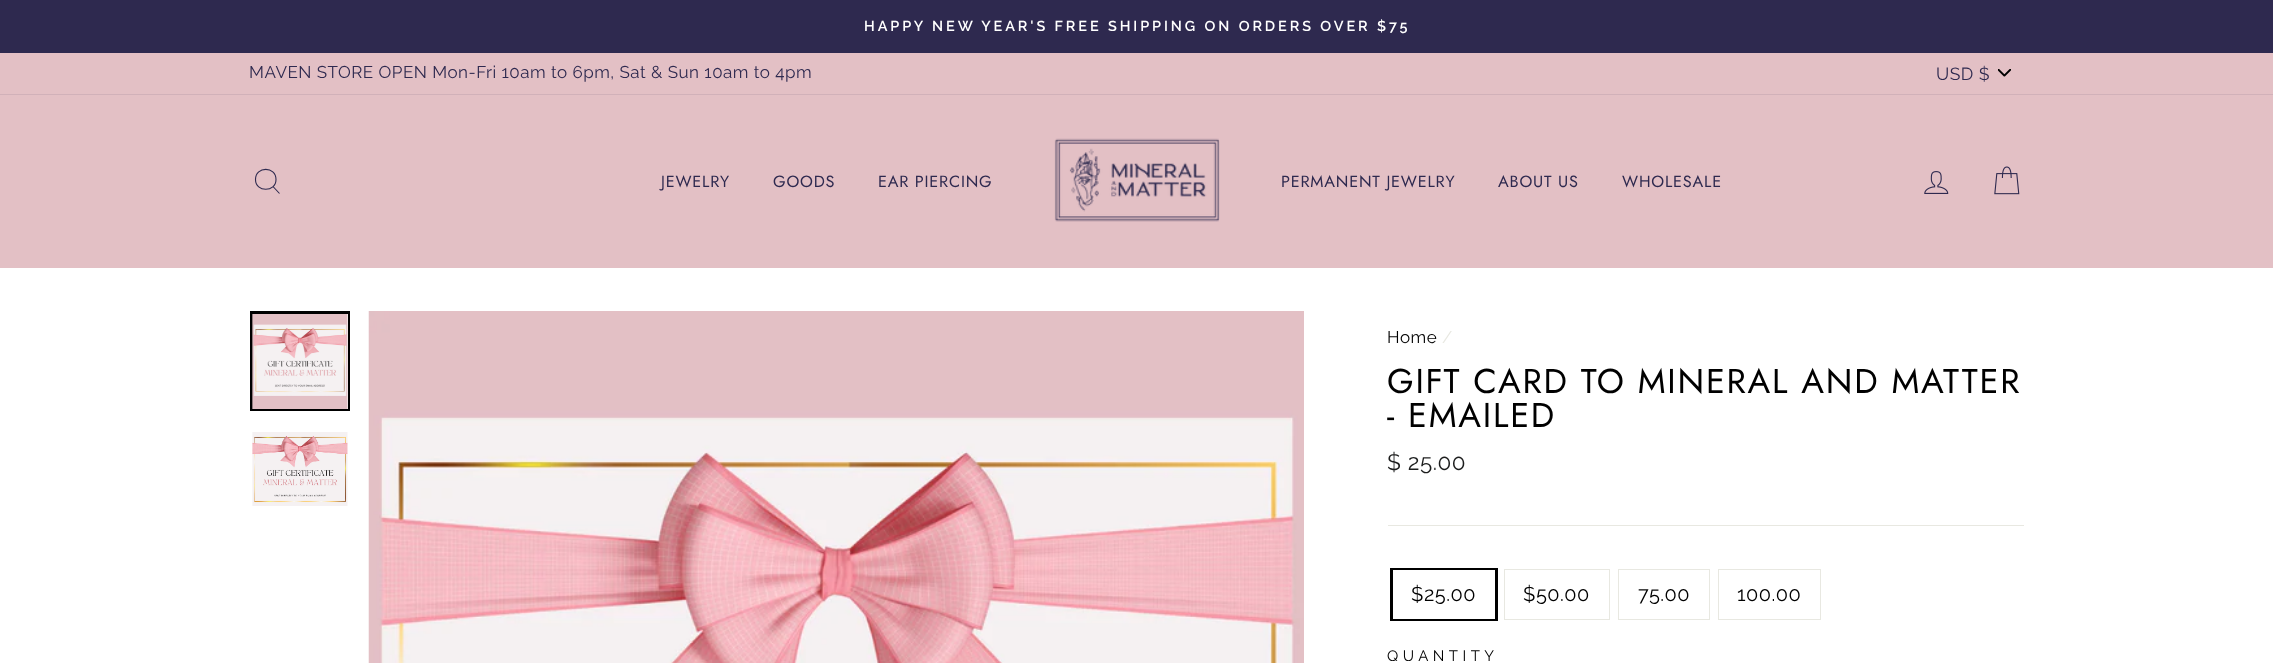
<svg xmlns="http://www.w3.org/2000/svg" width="2273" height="663">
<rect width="100%" height="100%" fill="#fff"/>
<rect width="2273" height="53" fill="#2e294f"/>
<text x="864" y="31" style="font-family:Raleway;font-size:14.45px;font-weight:600;letter-spacing:2.9px;fill:#fff">HAPPY NEW YEAR'S FREE SHIPPING ON ORDERS OVER $75</text>
<rect y="53" width="2273" height="41" fill="#e3c0c5"/>
<text x="249" y="78" style="font-family:Raleway;font-size:17px;letter-spacing:0.5px;fill:#2e294f">MAVEN STORE OPEN Mon-Fri 10am to 6pm, Sat &amp; Sun 10am to 4pm</text>
<image x="1998" y="69" width="13" height="8" href="media/1.png"/>
<text x="1936" y="80" style="font-family:Raleway;font-size:17.5px;letter-spacing:0.5px;fill:#2e294f">USD $</text>
<rect y="95" width="2273" height="173" fill="#e3c0c5"/>
<rect y="94" width="2273" height="1" fill="#d1b1b9"/>
<path d="M276 179.5c0 13-20.5 13-20.5 0c0-13.5 20.5-13.5 20.5 0zm3.5 14l-6.5-7" fill="none" stroke="#2e294f" stroke-width="1.1"/>
<text x="661" y="187" style="font-family:Jost;font-size:16.25px;letter-spacing:0.8px;fill:#2e294f">JEWELRY</text>
<text x="773" y="187" style="font-family:Jost;font-size:16.25px;letter-spacing:0.8px;fill:#2e294f">GOODS</text>
<text x="878" y="187" style="font-family:Jost;font-size:16.25px;letter-spacing:0.8px;fill:#2e294f">EAR PIERCING</text>
<image x="1054" y="138" width="166" height="84" href="media/2.png"/>
<text x="1281" y="187" style="font-family:Jost;font-size:16.25px;letter-spacing:0.8px;fill:#2e294f">PERMANENT JEWELRY</text>
<text x="1498" y="187" style="font-family:Jost;font-size:16.25px;letter-spacing:0.8px;fill:#2e294f">ABOUT US</text>
<text x="1622" y="187" style="font-family:Jost;font-size:16.25px;letter-spacing:0.8px;fill:#2e294f">WHOLESALE</text>
<image x="1924" y="171" width="25" height="23" href="media/3.png"/>
<image x="1994" y="166" width="26" height="29" href="media/4.png"/>
<rect x="251.5" y="312.5" width="97" height="97" fill="none" stroke="#000" stroke-width="3"/>
<rect x="347" y="314" width="1" height="95" fill="#fff"/>
<image x="252" y="314" width="96" height="95" href="media/5.png"/>
<image x="252" y="432" width="96" height="74" href="media/6.png"/>
<image x="368" y="311" width="936" height="352" href="media/7.png"/>
<text x="1387" y="343" style="font-family:Raleway;font-size:17px;letter-spacing:0.5px;fill:#000">Home</text>
<text x="1442" y="343" style="font-family:Raleway;font-size:17px;letter-spacing:0.5px;fill:#e8e8e1">/</text>
<text x="1387" y="393" style="font-family:Jost;font-size:34.4px;letter-spacing:1.75px;fill:#000">GIFT CARD TO MINERAL AND MATTER</text>
<text x="1387" y="427" style="font-family:Jost;font-size:34.4px;letter-spacing:1.75px;fill:#000">- EMAILED</text>
<text x="1387" y="470" style="font-family:Raleway;font-size:22.5px;letter-spacing:0.5px;fill:#1c1d1d">$ 25.00</text>
<rect x="1388" y="525" width="636" height="1" fill="#e8e8e1"/>
<rect x="1391.5" y="569.5" width="105" height="50" fill="none" stroke="#000" stroke-width="3"/>
<rect x="1393" y="570" width="102" height="49" fill="#fff"/>
<text x="1411" y="601" style="font-family:Raleway;font-size:20px;letter-spacing:0.5px;fill:#000">$25.00</text>
<rect x="1504.5" y="569.5" width="105" height="50" fill="none" stroke="#e8e8e1"/>
<text x="1523" y="601" style="font-family:Raleway;font-size:20px;letter-spacing:0.5px;fill:#000">$50.00</text>
<rect x="1618.5" y="569.5" width="91" height="50" fill="none" stroke="#e8e8e1"/>
<text x="1638" y="601" style="font-family:Raleway;font-size:20px;letter-spacing:0.5px;fill:#000">75.00</text>
<rect x="1718.5" y="569.5" width="102" height="50" fill="none" stroke="#e8e8e1"/>
<text x="1737" y="601" style="font-family:Raleway;font-size:20px;letter-spacing:0.5px;fill:#000">100.00</text>
<text x="1387" y="661" style="font-family:Raleway;font-size:15px;letter-spacing:4.5px;fill:#000">QUANTITY</text>
</svg>
